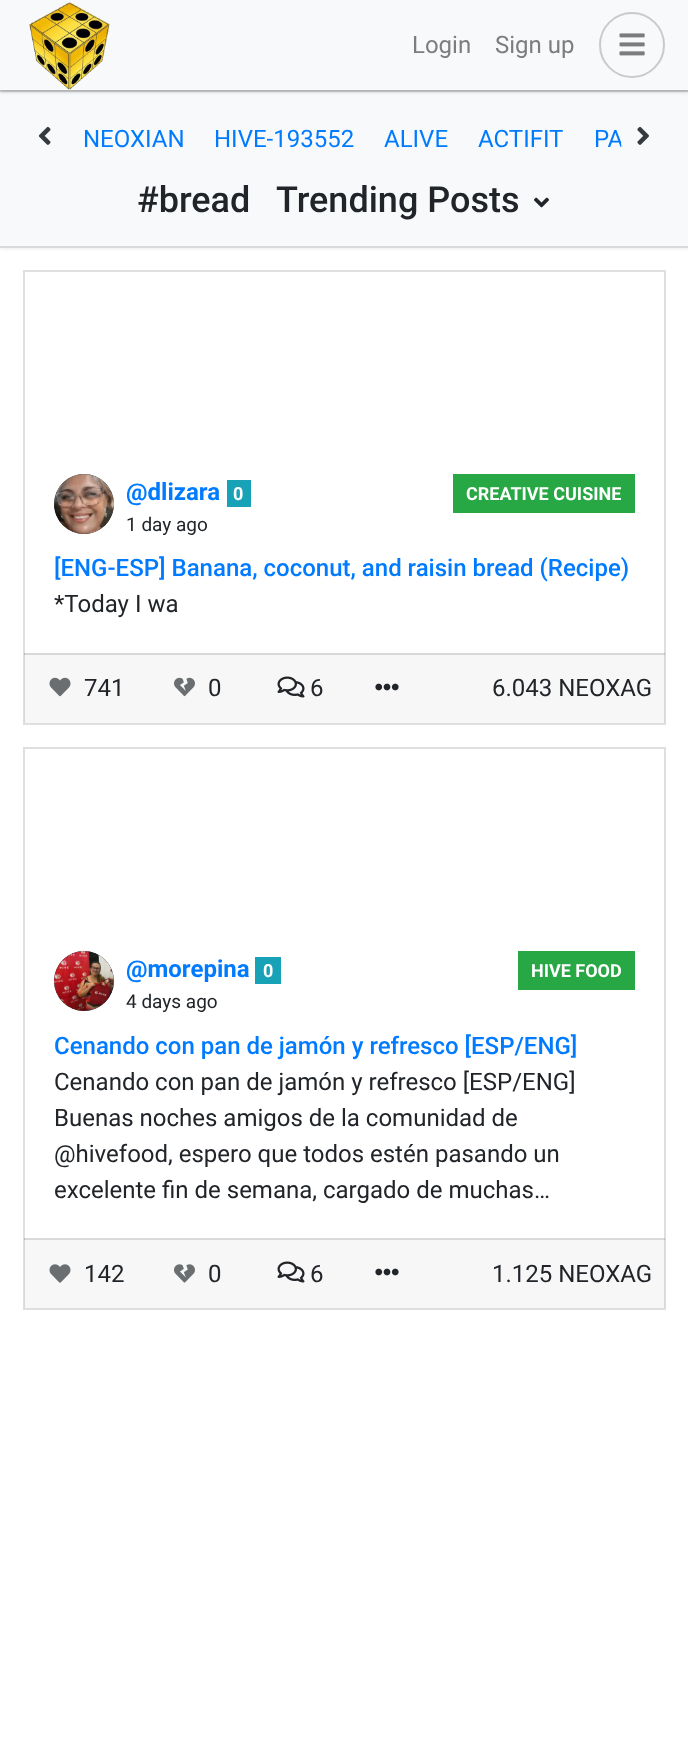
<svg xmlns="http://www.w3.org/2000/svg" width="688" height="1739">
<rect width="100%" height="100%" fill="#fff"/>
<rect y="92" width="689" height="157" fill="#00000012" filter="blur(1.5px)"/>
<rect y="92" width="688" height="154" fill="#f8f9fa"/>
<rect y="90" width="688" height="2" fill="#d9dadb"/>
<rect y="2" width="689" height="90" fill="#00000024" filter="blur(1.5px)"/>
<rect y="2" width="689" height="90" fill="#00000012" filter="blur(2px)"/>
<rect width="688" height="90" fill="#f8f9fa"/>
<image x="29" y="2" width="81" height="88" href="media/1.png"/>
<text x="412" y="53" style="font-family:Roboto;font-size:24px;fill:#7c7d7d">Login</text>
<text x="495" y="53" style="font-family:Roboto;font-size:24px;fill:#7c7d7d">Sign up</text>
<circle cx="632" cy="45" r="32" fill="none" stroke="#cacaca" stroke-width="2"/>
<image x="619" y="33" width="26" height="23" href="media/2.png"/>
<rect y="246" width="688" height="2" fill="#d9dadb"/>
<image x="38" y="126" width="13" height="19" href="media/3.png"/>
<text x="83" y="147" style="font-family:Roboto;font-size:24px;fill:#007bff">NEOXIAN</text>
<text x="214" y="147" style="font-family:Roboto;font-size:24px;fill:#007bff">HIVE-193552</text>
<text x="384" y="147" style="font-family:Roboto;font-size:24px;fill:#007bff">ALIVE</text>
<text x="478" y="147" style="font-family:Roboto;font-size:24px;fill:#007bff">ACTIFIT</text>
<text x="594" y="147" style="font-family:Roboto;font-size:24px;fill:#007bff">PA</text>
<rect x="621" y="143" width="2" height="4" fill="#f8f9facc"/>
<image x="637" y="126" width="12" height="19" href="media/4.png"/>
<text x="137" y="212" style="font-family:Roboto;font-size:36px;font-weight:500;fill:#212529">#bread</text>
<text x="276" y="212" style="font-family:Roboto;font-size:36px;font-weight:500;fill:#212529">Trending Posts</text>
<image x="534" y="197" width="15" height="11" href="media/5.png"/>
<rect x="24" y="271" width="641" height="453" fill="none" stroke="#dfdfdf" stroke-width="2"/>
<circle cx="84" cy="504" r="30" fill="#343a40"/>
<image x="54" y="474" width="60" height="60" href="media/6.png"/>
<text x="126" y="500" style="font-family:Roboto;font-size:24px;font-weight:bold;fill:#007bff">@dlizara</text>
<rect x="227" y="480" width="24" height="27" fill="#17a2b8"/>
<text x="233" y="500" style="font-family:Roboto;font-size:18px;font-weight:bold;fill:#fff">0</text>
<text x="126" y="531" style="font-family:Roboto;font-size:19px;fill:#212529">1 day ago</text>
<rect x="453" y="474" width="182" height="39" fill="#28a745"/>
<text x="466" y="500" style="font-family:Roboto;font-size:18px;font-weight:bold;fill:#fff">CREATIVE CUISINE</text>
<text x="54" y="576" style="font-family:Roboto;font-size:24px;font-weight:500;fill:#007bff">[ENG-ESP] Banana, coconut, and raisin bread (Recipe)</text>
<text x="54" y="612" style="font-family:Roboto;font-size:24px;fill:#212529">*Today I wa</text>
<rect x="24" y="653" width="641" height="70" fill="#00000008"/>
<rect x="24" y="653" width="641" height="2" fill="#0000001f"/>
<image x="49" y="677" width="22" height="20" href="media/7.png"/>
<text x="84" y="696" style="font-family:Roboto;font-size:24px;fill:#212529">741</text>
<image x="174" y="677" width="21" height="20" href="media/8.png"/>
<text x="208" y="696" style="font-family:Roboto;font-size:24px;fill:#212529">0</text>
<image x="277" y="676" width="28" height="22" href="media/9.png"/>
<text x="310" y="696" style="font-family:Roboto;font-size:24px;fill:#212529">6</text>
<image x="375" y="683" width="24" height="8" href="media/10.png"/>
<text x="492" y="696" style="font-family:Roboto;font-size:24px;fill:#212529">6.043 NEOXAG</text>
<rect x="24" y="748" width="641" height="561" fill="none" stroke="#dfdfdf" stroke-width="2"/>
<circle cx="84" cy="981" r="30" fill="#343a40"/>
<image x="54" y="951" width="60" height="60" href="media/11.png"/>
<text x="126" y="977" style="font-family:Roboto;font-size:24px;font-weight:bold;fill:#007bff">@morepina</text>
<rect x="255" y="957" width="26" height="27" fill="#17a2b8"/>
<text x="263" y="977" style="font-family:Roboto;font-size:18px;font-weight:bold;fill:#fff">0</text>
<text x="126" y="1008" style="font-family:Roboto;font-size:19px;fill:#212529">4 days ago</text>
<rect x="518" y="951" width="117" height="39" fill="#28a745"/>
<text x="531" y="977" style="font-family:Roboto;font-size:18px;font-weight:bold;fill:#fff">HIVE FOOD</text>
<text x="54" y="1054" style="font-family:Roboto;font-size:24px;font-weight:500;fill:#007bff">Cenando con pan de jamón y refresco [ESP/ENG]</text>
<text x="54" y="1090" style="font-family:Roboto;font-size:24px;fill:#212529">Cenando con pan de jamón y refresco [ESP/ENG]</text>
<text x="54" y="1126" style="font-family:Roboto;font-size:24px;fill:#212529">Buenas noches amigos de la comunidad de</text>
<text x="54" y="1162" style="font-family:Roboto;font-size:24px;fill:#212529">@hivefood, espero que todos estén pasando un</text>
<text x="54" y="1198" style="font-family:Roboto;font-size:24px;fill:#212529">excelente fin de semana, cargado de muchas…</text>
<rect x="24" y="1238" width="641" height="70" fill="#00000008"/>
<rect x="24" y="1238" width="641" height="2" fill="#0000001f"/>
<image x="49" y="1264" width="22" height="19" href="media/12.png"/>
<text x="84" y="1282" style="font-family:Roboto;font-size:24px;fill:#212529">142</text>
<image x="174" y="1264" width="21" height="19" href="media/13.png"/>
<text x="208" y="1282" style="font-family:Roboto;font-size:24px;fill:#212529">0</text>
<image x="277" y="1261" width="28" height="22" href="media/9.png"/>
<text x="310" y="1282" style="font-family:Roboto;font-size:24px;fill:#212529">6</text>
<image x="375" y="1268" width="24" height="8" href="media/10.png"/>
<text x="492" y="1282" style="font-family:Roboto;font-size:24px;fill:#212529">1.125 NEOXAG</text>
</svg>
